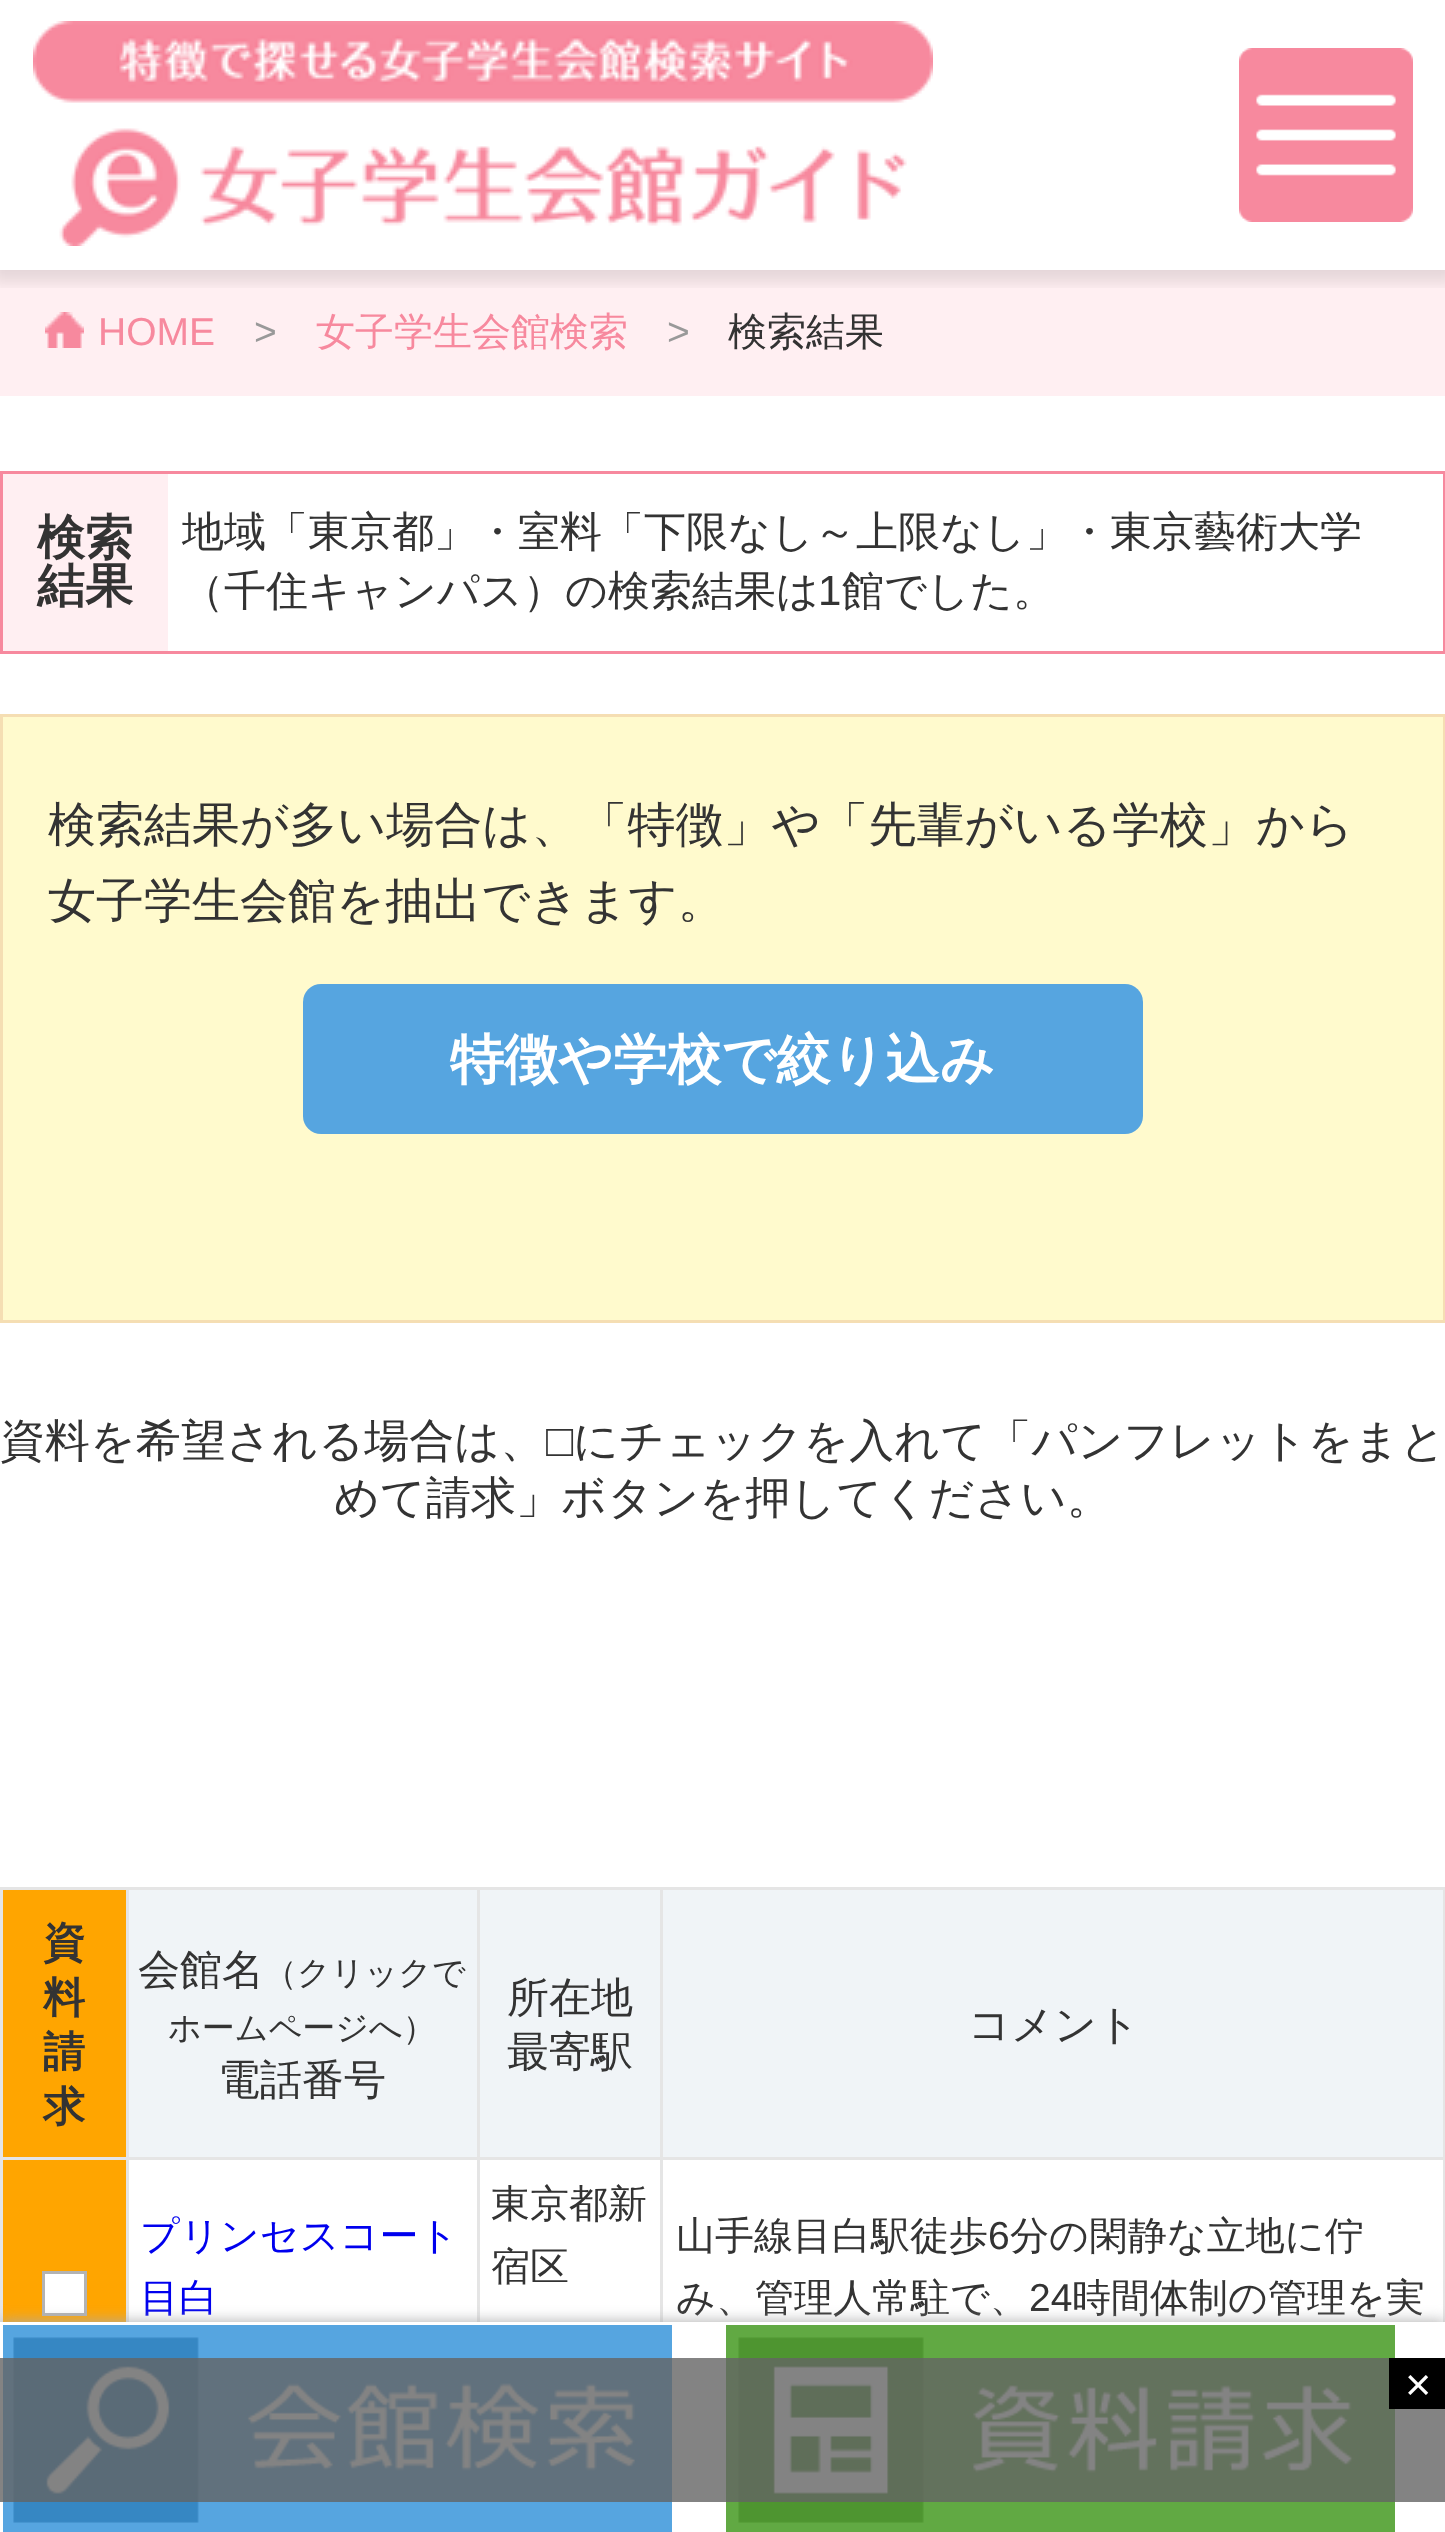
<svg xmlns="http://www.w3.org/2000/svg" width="1445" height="2532">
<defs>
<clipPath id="clip1"><rect x="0" y="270" width="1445" height="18"/></clipPath>
</defs>
<rect width="100%" height="100%" fill="#fff"/>
<rect y="270" width="1445" height="126" fill="#ffeff2"/>
<g clip-path="url(#clip1)">
<rect x="-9" y="-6" width="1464" height="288" fill="#0000001a" filter="blur(7.5px)"/>
</g>
<image x="33" y="21" width="900" height="225" href="media/1.png"/>
<image x="1239" y="48" width="174" height="174" href="media/2.png"/>
<image x="45" y="312" width="39" height="36" href="media/3.png"/>
<text x="98" y="345" style="font-family:Liberation Sans;font-size:39px;fill:#f7899e">HOME</text>
<text x="254" y="345" style="font-family:Liberation Sans;font-size:39px;fill:#999">&gt;</text>
<text x="316" y="345" style="font-family:WenQuanYi Zen Hei;font-size:39px;font-weight:500;fill:#f7899e">女子学生会館検索</text>
<text x="667" y="345" style="font-family:Liberation Sans;font-size:39px;fill:#999">&gt;</text>
<text x="728" y="345" style="font-family:WenQuanYi Zen Hei;font-size:39px;font-weight:500;fill:#333">検索結果</text>
<rect y="471" width="1445" height="3" fill="#f7899e"/>
<rect x="1443" y="471" width="2" height="183" fill="#f7899e"/>
<rect y="651" width="1445" height="3" fill="#f7899e"/>
<rect y="471" width="3" height="183" fill="#f7899e"/>
<rect x="3" y="474" width="165" height="177" fill="#ffeff2"/>
<text x="37" y="554" style="font-family:WenQuanYi Zen Hei;font-size:48px;font-weight:bold;fill:#333">検索</text>
<text x="37" y="602" style="font-family:WenQuanYi Zen Hei;font-size:48px;font-weight:bold;fill:#333">結果</text>
<text x="182" y="546" style="font-family:WenQuanYi Zen Hei;font-size:42px;font-weight:500;fill:#333">地域「東京都」・室料「下限なし～上限なし」・東京藝術大学</text>
<text x="182" y="605" style="font-family:WenQuanYi Zen Hei;font-size:42px;font-weight:500;fill:#333">（千住キャンパス）の検索結果は</text>
<text x="818" y="605" style="font-family:Liberation Sans;font-size:42px;fill:#333">1</text>
<text x="842" y="605" style="font-family:WenQuanYi Zen Hei;font-size:42px;font-weight:500;fill:#333">館でした。</text>
<rect x="1.5" y="715.5" width="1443" height="606" fill="#fffacd" stroke="#f5deb3" stroke-width="3"/>
<text x="48" y="841" style="font-family:WenQuanYi Zen Hei;font-size:48px;font-weight:500;fill:#333">検索結果が多い場合は、「特徴」や「先輩がいる学校」から</text>
<text x="48" y="917" style="font-family:WenQuanYi Zen Hei;font-size:48px;font-weight:500;fill:#333">女子学生会館を抽出できます。</text>
<rect x="303" y="984" width="840" height="150" rx="18" fill="#56a5e0"/>
<text x="450" y="1078" style="font-family:WenQuanYi Zen Hei;font-size:54px;font-weight:bold;fill:#fff">特徴や学校で絞り込み</text>
<text x="0" y="1456" style="font-family:WenQuanYi Zen Hei;font-size:45px;font-weight:500;fill:#333">資料を希望される場合は、</text>
<text x="546" y="1456" style="font-family:Liberation Sans;font-size:45px;fill:#333">□</text>
<text x="573" y="1456" style="font-family:WenQuanYi Zen Hei;font-size:45px;font-weight:500;fill:#333">にチェックを入れて「パンフレットをまと</text>
<text x="334" y="1513" style="font-family:WenQuanYi Zen Hei;font-size:45px;font-weight:500;fill:#333">めて請求」ボタンを押してください。</text>
<rect x="3" y="1890" width="123" height="267" fill="#ffa500"/>
<rect x="660" y="1887" width="785" height="3" fill="#e5e5e5"/>
<rect x="660" y="2157" width="785" height="3" fill="#e5e5e5"/>
<rect x="660" y="2157" width="3" height="165" fill="#e5e5e5"/>
<rect x="477" y="2157" width="186" height="3" fill="#e5e5e5"/>
<rect x="660" y="1887" width="3" height="273" fill="#e5e5e5"/>
<rect x="477" y="1887" width="186" height="3" fill="#e5e5e5"/>
<rect x="477" y="2157" width="3" height="165" fill="#e5e5e5"/>
<rect x="126" y="2157" width="354" height="3" fill="#e5e5e5"/>
<rect x="477" y="1887" width="3" height="273" fill="#e5e5e5"/>
<rect x="126" y="1887" width="354" height="3" fill="#e5e5e5"/>
<rect x="126" y="2157" width="3" height="165" fill="#e5e5e5"/>
<rect y="2157" width="129" height="3" fill="#e5e5e5"/>
<rect x="126" y="1887" width="3" height="273" fill="#e5e5e5"/>
<rect y="1887" width="129" height="3" fill="#e5e5e5"/>
<rect y="2157" width="3" height="165" fill="#e5e5e5"/>
<rect y="1887" width="3" height="273" fill="#e5e5e5"/>
<text x="43" y="1957" style="font-family:WenQuanYi Zen Hei;font-size:42px;font-weight:bold;fill:#333">資</text>
<text x="43" y="2012" style="font-family:WenQuanYi Zen Hei;font-size:42px;font-weight:bold;fill:#333">料</text>
<text x="43" y="2066" style="font-family:WenQuanYi Zen Hei;font-size:42px;font-weight:bold;fill:#333">請</text>
<text x="43" y="2121" style="font-family:WenQuanYi Zen Hei;font-size:42px;font-weight:bold;fill:#333">求</text>
<rect x="129" y="1890" width="348" height="267" fill="#f0f4f7"/>
<text x="138" y="1984" style="font-family:WenQuanYi Zen Hei;font-size:42px;font-weight:500;fill:#333">会館名</text>
<text x="264" y="1984" style="font-family:WenQuanYi Zen Hei;font-size:33px;font-weight:500;fill:#333">（クリックで</text>
<text x="168" y="2039" style="font-family:WenQuanYi Zen Hei;font-size:33px;font-weight:500;fill:#333">ホームページへ）</text>
<text x="218" y="2094" style="font-family:WenQuanYi Zen Hei;font-size:42px;font-weight:500;fill:#333">電話番号</text>
<rect x="480" y="1890" width="180" height="267" fill="#f0f4f7"/>
<text x="507" y="2012" style="font-family:WenQuanYi Zen Hei;font-size:42px;font-weight:500;fill:#333">所在地</text>
<text x="507" y="2066" style="font-family:WenQuanYi Zen Hei;font-size:42px;font-weight:500;fill:#333">最寄駅</text>
<rect x="663" y="1890" width="780" height="267" fill="#f0f4f7"/>
<rect x="1443" y="2157" width="2" height="165" fill="#e5e5e5"/>
<rect x="1443" y="1887" width="2" height="273" fill="#e5e5e5"/>
<text x="968" y="2039" style="font-family:WenQuanYi Zen Hei;font-size:42px;font-weight:500;fill:#333">コメント</text>
<rect x="3" y="2160" width="123" height="162" fill="#ffa500"/>
<rect x="43.5" y="2272.5" width="42" height="42" fill="none" stroke="#b3b3b3" stroke-width="3"/>
<rect x="45" y="2274" width="39" height="39" fill="#fff"/>
<text x="140" y="2249" style="font-family:WenQuanYi Zen Hei;font-size:39px;font-weight:500;fill:#00e">プリンセスコート</text>
<text x="140" y="2311" style="font-family:WenQuanYi Zen Hei;font-size:39px;font-weight:500;fill:#00e">目白</text>
<text x="491" y="2217" style="font-family:WenQuanYi Zen Hei;font-size:39px;font-weight:500;fill:#333">東京都新</text>
<text x="491" y="2280" style="font-family:WenQuanYi Zen Hei;font-size:39px;font-weight:500;fill:#333">宿区</text>
<text x="676" y="2249" style="font-family:WenQuanYi Zen Hei;font-size:39px;font-weight:500;fill:#333">山手線目白駅徒歩</text>
<text x="988" y="2249" style="font-family:Liberation Sans;font-size:39px;fill:#333">6</text>
<text x="1010" y="2249" style="font-family:WenQuanYi Zen Hei;font-size:39px;font-weight:500;fill:#333">分の閑静な立地に佇</text>
<text x="676" y="2311" style="font-family:WenQuanYi Zen Hei;font-size:39px;font-weight:500;fill:#333">み、管理人常駐で、</text>
<text x="1029" y="2311" style="font-family:Liberation Sans;font-size:39px;fill:#333">24</text>
<text x="1072" y="2311" style="font-family:WenQuanYi Zen Hei;font-size:39px;font-weight:500;fill:#333">時間体制の管理を実</text>
<rect y="2322" width="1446" height="210" fill="#acacac" filter="blur(7.5px)"/>
<rect y="2322" width="1445" height="210" fill="#fff"/>
<image x="3" y="2325" width="669" height="207" href="media/4.png"/>
<image x="726" y="2325" width="669" height="207" href="media/5.png"/>
<rect y="2358" width="1445" height="144" fill="#646464cc"/>
<rect x="1389" y="2358" width="56" height="51" fill="#000"/>
<text x="1405" y="2400" style="font-family:Liberation Sans;font-size:45px;fill:#fff">×</text>
</svg>
